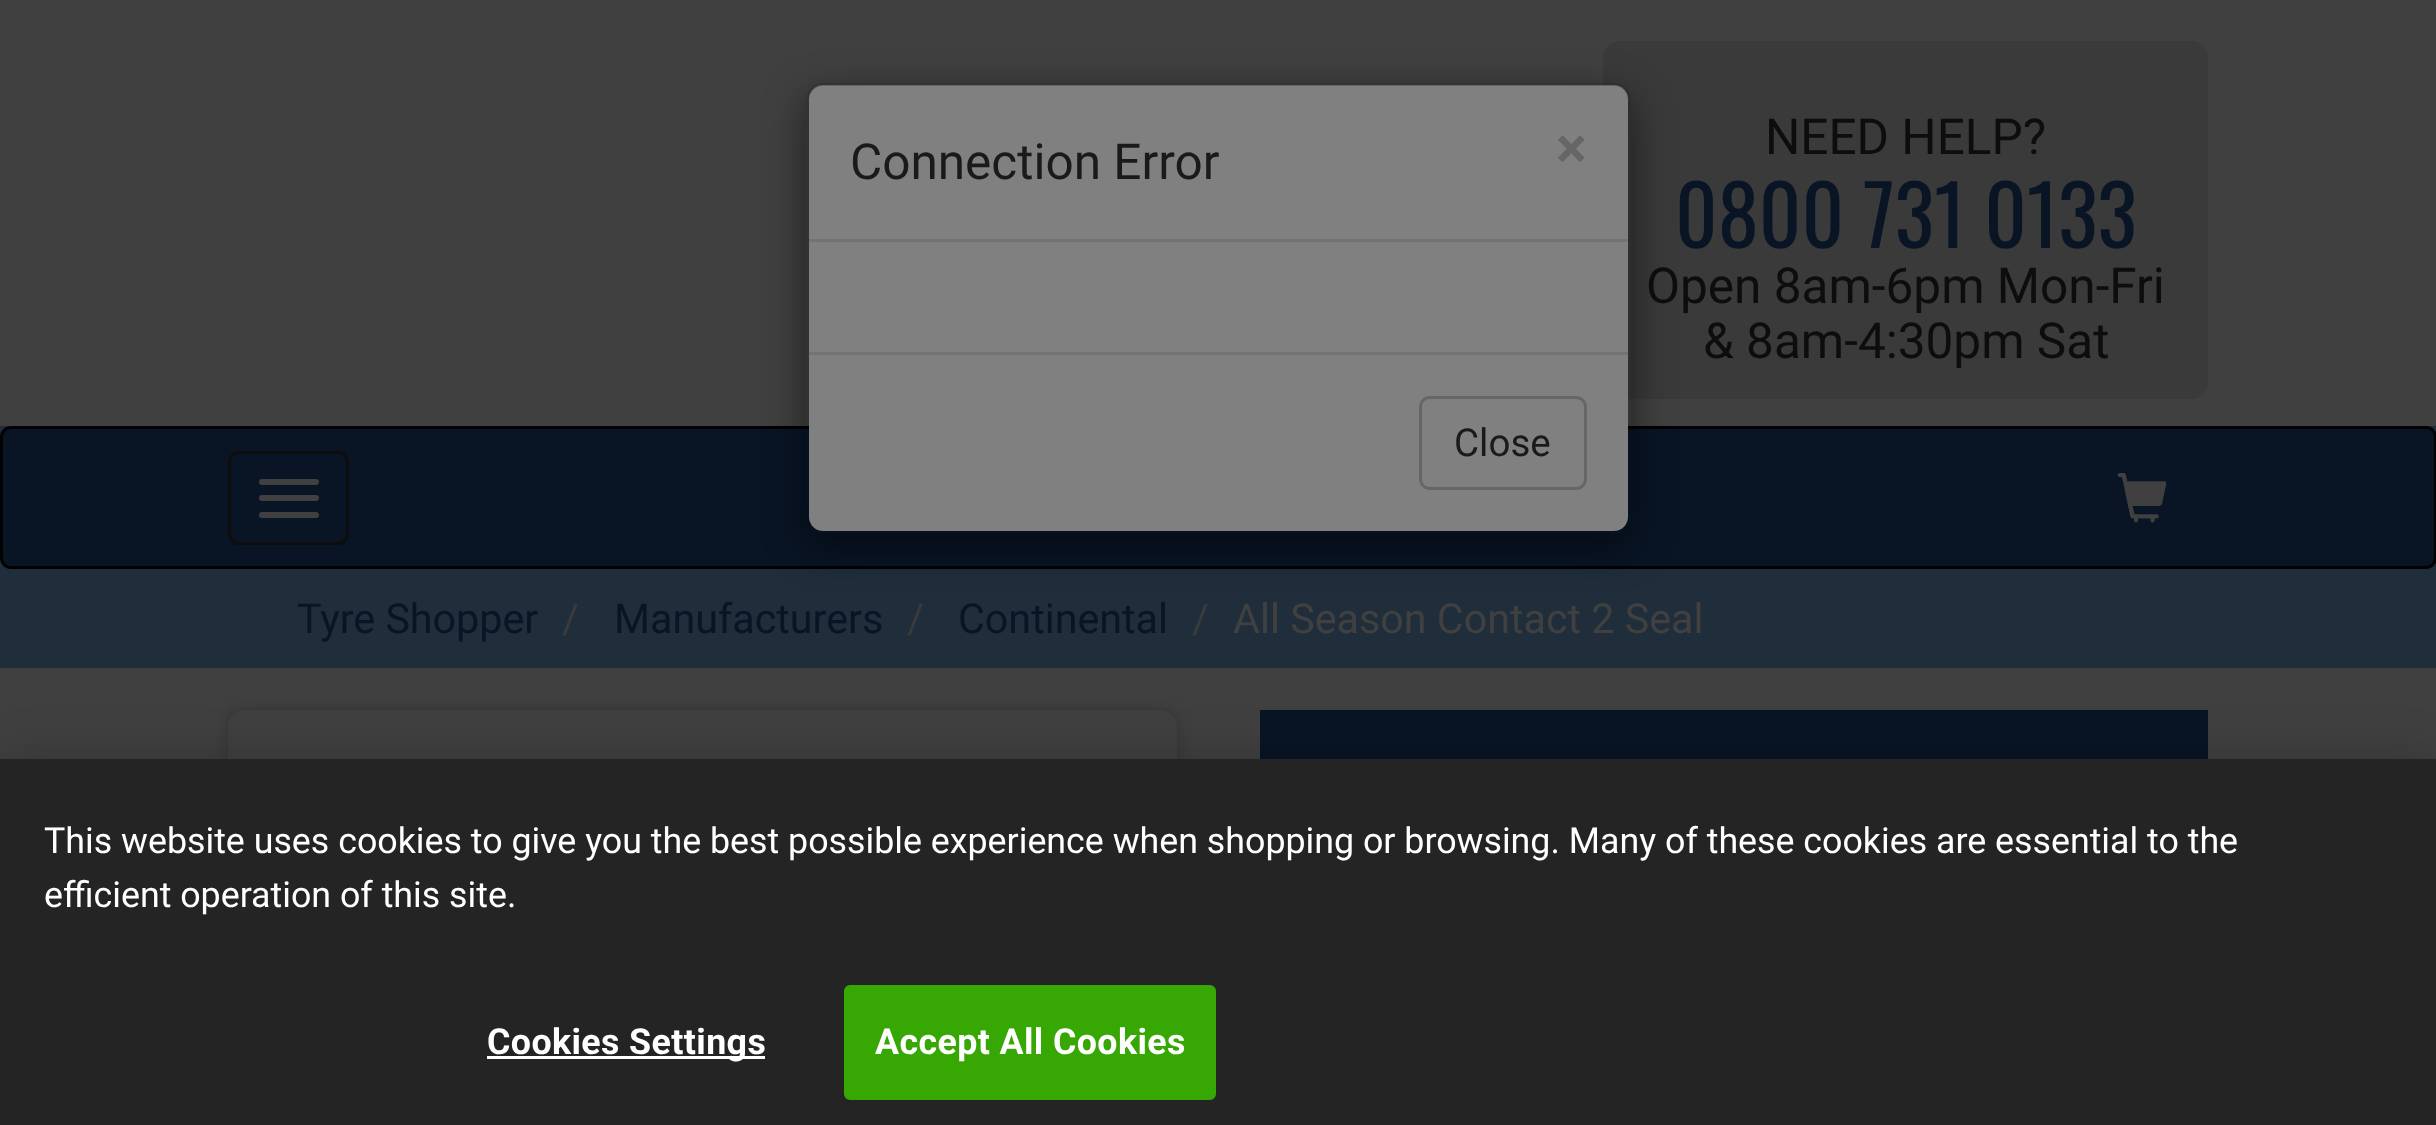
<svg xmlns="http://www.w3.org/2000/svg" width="2436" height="1125">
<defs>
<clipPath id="clip1"><path d="M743 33h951v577h-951zm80 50h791c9.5 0 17 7.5 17 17v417c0 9.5-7.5 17-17 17h-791c-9.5 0-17-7.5-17-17v-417c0-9.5 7.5-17 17-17z" clip-rule="evenodd"/></clipPath>
</defs>
<rect width="100%" height="100%" fill="#404040"/>
<rect x="1603" y="41" width="605" height="358" rx="17" fill="#3a3a3a"/>
<rect y="426" width="2436" height="242" fill="#1f2e3a"/>
<rect x="1.5" y="427.5" width="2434" height="140" rx="9.5" fill="#091525" stroke="#020202" stroke-width="3"/>
<g clip-path="url(#clip1)">
<rect x="806" y="96" width="825" height="451" rx="17" fill="#00000080" filter="blur(20.5px)"/>
</g>
<rect x="809" y="85" width="819" height="446" rx="14" fill="#808080"/>
<rect x="807.5" y="84.5" width="822" height="448" rx="15.5" fill="none" stroke="#00000033" stroke-width="3"/>
<rect x="809" y="239" width="819" height="3" fill="#737373"/>
<text x="850" y="179" style="font-family:Roboto;font-size:49.5px;fill:#1a1a1a">Connection Error</text>
<text x="1556" y="168" style="font-family:Roboto;font-size:58px;font-weight:bold;fill:#666">×</text>
<rect x="809" y="352" width="819" height="3" fill="#737373"/>
<rect x="1420.5" y="397.5" width="165" height="91" rx="9.5" fill="none" stroke="#666" stroke-width="3"/>
<text x="1454" y="456" style="font-family:Roboto;font-size:38.5px;fill:#1a1a1a">Close</text>
<text x="1765" y="154" style="font-family:Roboto;font-size:49.5px;fill:#0d0d0d">NEED HELP?</text>
<text x="1675" y="248" style="font-family:Oswald;font-size:82.5px;fill:#091525">0800 731 0133</text>
<text x="1646" y="303" style="font-family:Roboto;font-size:49.5px;fill:#0d0d0d">Open 8am-6pm Mon-Fri</text>
<text x="1703" y="358" style="font-family:Roboto;font-size:49.5px;fill:#0d0d0d">&amp; 8am-4:30pm Sat</text>
<rect x="229.5" y="452.5" width="118" height="91" rx="9.5" fill="none" stroke="#0d0d0d" stroke-width="3"/>
<rect x="259" y="479" width="60" height="6" rx="3" fill="#404040"/>
<rect x="259" y="495" width="60" height="6" rx="3" fill="#404040"/>
<rect x="259" y="512" width="60" height="6" rx="3" fill="#404040"/>
<image x="2117" y="473" width="50" height="50" href="media/1.png"/>
<text x="297" y="633" style="font-family:Roboto;font-size:41.25px;fill:#091525">Tyre Shopper</text>
<text x="562" y="633" style="font-family:Roboto;font-size:41.25px;fill:#3a3a3a">/</text>
<text x="614" y="633" style="font-family:Roboto;font-size:41.25px;fill:#091525">Manufacturers</text>
<text x="907" y="633" style="font-family:Roboto;font-size:41.25px;fill:#3a3a3a">/</text>
<text x="958" y="633" style="font-family:Roboto;font-size:41.25px;fill:#091525">Continental</text>
<text x="1192" y="633" style="font-family:Roboto;font-size:41.25px;fill:#3a3a3a">/</text>
<text x="1233" y="633" style="font-family:Roboto;font-size:41.25px;fill:#404040">All Season Contact 2 Seal</text>
<rect x="228" y="710" width="949" height="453" rx="17" fill="#333" filter="blur(7px)"/>
<rect x="228" y="710" width="949" height="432" rx="17" fill="#404040"/>
<rect x="1260" y="710" width="948" height="49" fill="#091525"/>
<rect y="759" width="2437" height="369" fill="#00000033" filter="blur(25px)"/>
<rect y="759" width="2436" height="366" fill="#242424"/>
<text x="44" y="853" style="font-family:Roboto;font-size:35.77px;fill:#fff">This website uses cookies to give you the best possible experience when shopping or browsing. Many of these cookies are essential to the</text>
<text x="44" y="907" style="font-family:Roboto;font-size:35.77px;fill:#fff">efficient operation of this site.</text>
<rect x="487" y="1056" width="278" height="3" fill="#fff"/>
<text x="487" y="1054" style="font-family:Roboto;font-size:35.77px;font-weight:bold;letter-spacing:0.4px;fill:#fff">Cookies Settings</text>
<rect x="845.5" y="986.5" width="369" height="112" rx="4.5" fill="#37a703" stroke="#37a703" stroke-width="3"/>
<text x="875" y="1054" style="font-family:Roboto;font-size:35.77px;font-weight:bold;letter-spacing:0.4px;fill:#fff">Accept All Cookies</text>
</svg>
